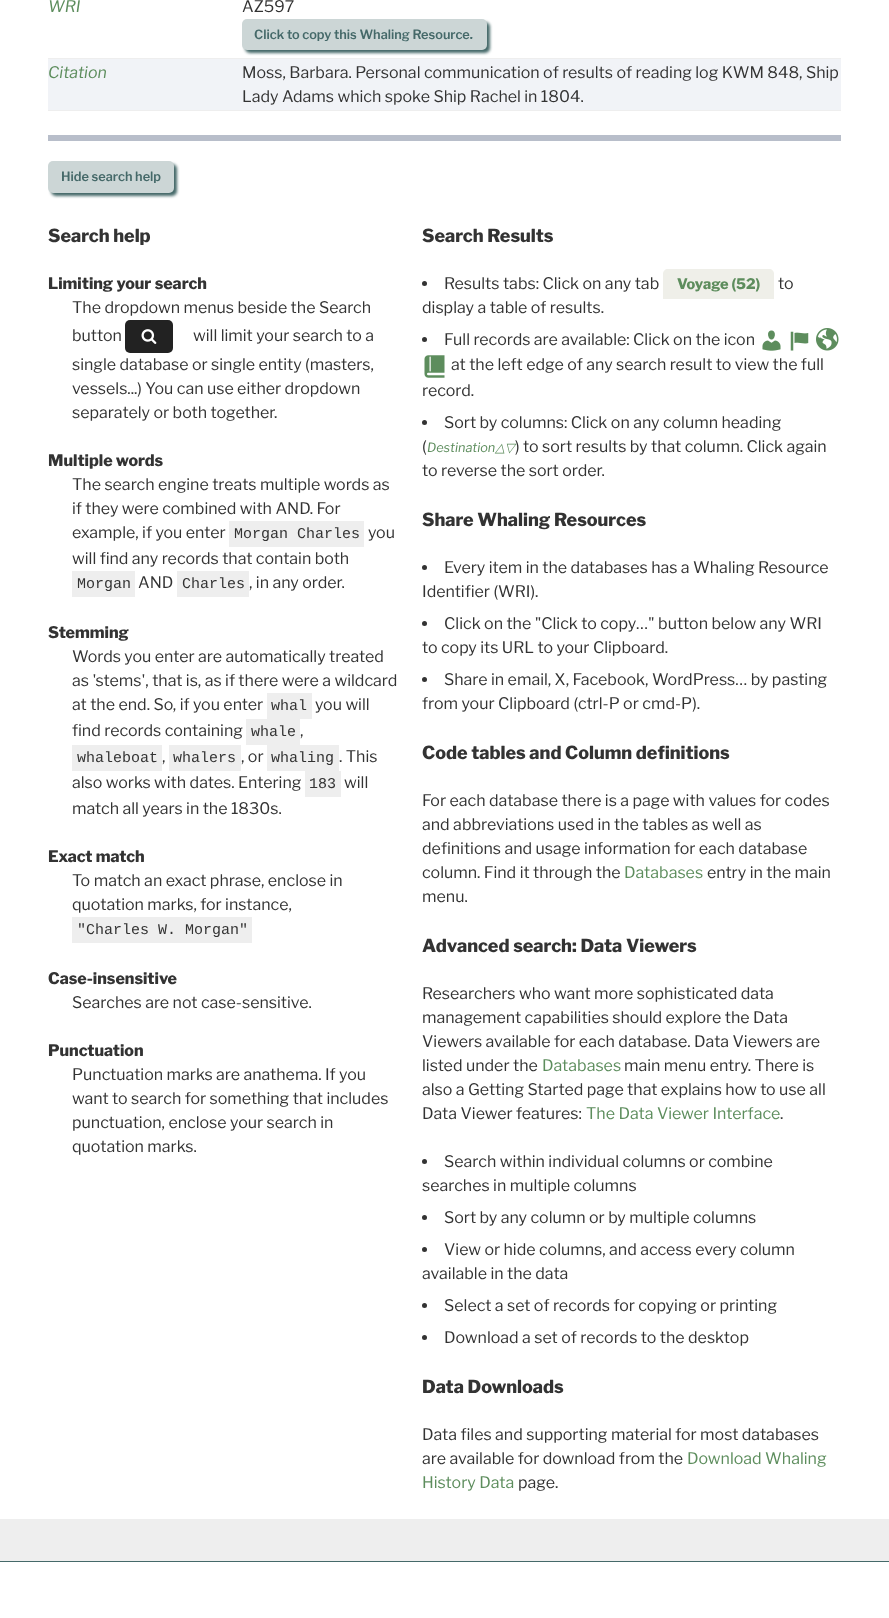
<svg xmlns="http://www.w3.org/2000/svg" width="889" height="1618">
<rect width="100%" height="100%" fill="#eee"/>
<rect width="889" height="1519" fill="#fff"/>
<rect x="245" y="22" width="245" height="31" rx="5" fill="#456969" filter="blur(1.5px)"/>
<rect x="48" y="58" width="793" height="1" fill="#eee"/>
<text x="48" y="12" style="font-family:Libre Franklin;font-size:16px;font-style:italic;fill:#5d8d5d">WRI</text>
<text x="242" y="12" style="font-family:Libre Franklin;font-size:16px;fill:#333">AZ597</text>
<rect x="242" y="19" width="245" height="31" rx="5" fill="#ccd6d6"/>
<text x="254" y="39" style="font-family:Libre Franklin;font-size:12.75px;font-weight:600;fill:#456969">Click to copy this Whaling Resource.</text>
<rect x="48" y="59" width="793" height="51" fill="#f1f3f7"/>
<rect x="48" y="110" width="793" height="1" fill="#eee"/>
<text x="48" y="78" style="font-family:Libre Franklin;font-size:16px;font-style:italic;fill:#5d8d5d">Citation</text>
<text x="242" y="78" style="font-family:Libre Franklin;font-size:16px;fill:#333">Moss, Barbara. Personal communication of results of reading log KWM 848, Ship</text>
<text x="242" y="102" style="font-family:Libre Franklin;font-size:16px;fill:#333">Lady Adams which spoke Ship Rachel in 1804.</text>
<rect x="48" y="135" width="793" height="6" fill="#b8beca"/>
<rect x="51" y="164" width="126" height="32" rx="5" fill="#456969" filter="blur(1.5px)"/>
<rect x="48" y="161" width="126" height="32" rx="5" fill="#ccd6d6"/>
<text x="61" y="181" style="font-family:Libre Franklin;font-size:12.75px;font-weight:600;fill:#456969">Hide search help</text>
<text x="48" y="242" style="font-family:Libre Franklin;font-size:18px;font-weight:800;fill:#333">Search help</text>
<text x="48" y="289" style="font-family:Libre Franklin;font-size:16px;font-weight:800;fill:#333">Limiting your search</text>
<text x="72" y="313" style="font-family:Libre Franklin;font-size:16px;fill:#333">The dropdown menus beside the Search</text>
<text x="72" y="341" style="font-family:Libre Franklin;font-size:16px;fill:#333">button</text>
<rect x="125" y="320" width="48" height="33" rx="5" fill="#222"/>
<image x="141" y="329" width="16" height="15" href="media/1.png"/>
<text x="193" y="341" style="font-family:Libre Franklin;font-size:16px;fill:#333">will limit your search to a</text>
<text x="72" y="370" style="font-family:Libre Franklin;font-size:16px;fill:#333">single database or single entity (masters,</text>
<text x="72" y="394" style="font-family:Libre Franklin;font-size:16px;fill:#333">vessels...) You can use either dropdown</text>
<text x="72" y="418" style="font-family:Libre Franklin;font-size:16px;fill:#333">separately or both together.</text>
<text x="48" y="466" style="font-family:Libre Franklin;font-size:16px;font-weight:800;fill:#333">Multiple words</text>
<text x="72" y="490" style="font-family:Libre Franklin;font-size:16px;fill:#333">The search engine treats multiple words as</text>
<text x="72" y="514" style="font-family:Libre Franklin;font-size:16px;fill:#333">if they were combined with AND. For</text>
<text x="72" y="538" style="font-family:Libre Franklin;font-size:16px;fill:#333">example, if you enter</text>
<rect x="229" y="521" width="135" height="26" fill="#eee"/>
<text x="234" y="538" style="font-family:Liberation Mono;font-size:15px;fill:#333">Morgan Charles</text>
<text x="368" y="538" style="font-family:Libre Franklin;font-size:16px;fill:#333">you</text>
<text x="72" y="564" style="font-family:Libre Franklin;font-size:16px;fill:#333">will find any records that contain both</text>
<rect x="72" y="571" width="63" height="26" fill="#eee"/>
<text x="77" y="588" style="font-family:Liberation Mono;font-size:15px;fill:#333">Morgan</text>
<text x="138" y="588" style="font-family:Libre Franklin;font-size:16px;fill:#333">AND</text>
<rect x="177" y="571" width="72" height="26" fill="#eee"/>
<text x="182" y="588" style="font-family:Liberation Mono;font-size:15px;fill:#333">Charles</text>
<text x="249" y="588" style="font-family:Libre Franklin;font-size:16px;fill:#333">, in any order.</text>
<text x="48" y="638" style="font-family:Libre Franklin;font-size:16px;font-weight:800;fill:#333">Stemming</text>
<text x="72" y="662" style="font-family:Libre Franklin;font-size:16px;fill:#333">Words you enter are automatically treated</text>
<text x="72" y="686" style="font-family:Libre Franklin;font-size:16px;fill:#333">as 'stems', that is, as if there were a wildcard</text>
<text x="72" y="710" style="font-family:Libre Franklin;font-size:16px;fill:#333">at the end. So, if you enter</text>
<rect x="267" y="693" width="45" height="26" fill="#eee"/>
<text x="271" y="710" style="font-family:Liberation Mono;font-size:15px;fill:#333">whal</text>
<text x="315" y="710" style="font-family:Libre Franklin;font-size:16px;fill:#333">you will</text>
<text x="72" y="736" style="font-family:Libre Franklin;font-size:16px;fill:#333">find records containing</text>
<rect x="246" y="719" width="54" height="26" fill="#eee"/>
<text x="251" y="736" style="font-family:Liberation Mono;font-size:15px;fill:#333">whale</text>
<text x="300" y="736" style="font-family:Libre Franklin;font-size:16px;fill:#333">,</text>
<rect x="72" y="745" width="90" height="26" fill="#eee"/>
<text x="77" y="762" style="font-family:Liberation Mono;font-size:15px;fill:#333">whaleboat</text>
<text x="162" y="762" style="font-family:Libre Franklin;font-size:16px;fill:#333">,</text>
<rect x="169" y="745" width="72" height="26" fill="#eee"/>
<text x="173" y="762" style="font-family:Liberation Mono;font-size:15px;fill:#333">whalers</text>
<text x="241" y="762" style="font-family:Libre Franklin;font-size:16px;fill:#333">, or</text>
<rect x="267" y="745" width="72" height="26" fill="#eee"/>
<text x="271" y="762" style="font-family:Liberation Mono;font-size:15px;fill:#333">whaling</text>
<text x="339" y="762" style="font-family:Libre Franklin;font-size:16px;fill:#333">. This</text>
<text x="72" y="788" style="font-family:Libre Franklin;font-size:16px;fill:#333">also works with dates. Entering</text>
<rect x="305" y="771" width="36" height="26" fill="#eee"/>
<text x="309" y="788" style="font-family:Liberation Mono;font-size:15px;fill:#333">183</text>
<text x="344" y="788" style="font-family:Libre Franklin;font-size:16px;fill:#333">will</text>
<text x="72" y="814" style="font-family:Libre Franklin;font-size:16px;fill:#333">match all years in the 1830s.</text>
<text x="48" y="862" style="font-family:Libre Franklin;font-size:16px;font-weight:800;fill:#333">Exact match</text>
<text x="72" y="886" style="font-family:Libre Franklin;font-size:16px;fill:#333">To match an exact phrase, enclose in</text>
<text x="72" y="910" style="font-family:Libre Franklin;font-size:16px;fill:#333">quotation marks, for instance,</text>
<rect x="72" y="917" width="180" height="26" fill="#eee"/>
<text x="77" y="934" style="font-family:Liberation Mono;font-size:15px;fill:#333">"Charles W. Morgan"</text>
<text x="48" y="984" style="font-family:Libre Franklin;font-size:16px;font-weight:800;fill:#333">Case-insensitive</text>
<text x="72" y="1008" style="font-family:Libre Franklin;font-size:16px;fill:#333">Searches are not case-sensitive.</text>
<text x="48" y="1056" style="font-family:Libre Franklin;font-size:16px;font-weight:800;fill:#333">Punctuation</text>
<text x="72" y="1080" style="font-family:Libre Franklin;font-size:16px;fill:#333">Punctuation marks are anathema. If you</text>
<text x="72" y="1104" style="font-family:Libre Franklin;font-size:16px;fill:#333">want to search for something that includes</text>
<text x="72" y="1128" style="font-family:Libre Franklin;font-size:16px;fill:#333">punctuation, enclose your search in</text>
<text x="72" y="1152" style="font-family:Libre Franklin;font-size:16px;fill:#333">quotation marks.</text>
<text x="422" y="242" style="font-family:Libre Franklin;font-size:18px;font-weight:800;fill:#333">Search Results</text>
<circle cx="424.5" cy="283.5" r="2.5" fill="#333"/>
<text x="444" y="289" style="font-family:Libre Franklin;font-size:16px;fill:#333">Results tabs: Click on any tab</text>
<path d="M668 269h101c3 0 5 2 5 5v25h-111v-25c0-3 2-5 5-5z" fill="#efefe9"/>
<text x="677" y="289" style="font-family:Libre Franklin;font-size:14.5px;font-weight:800;fill:#5d8d5d">Voyage (52)</text>
<text x="778" y="289" style="font-family:Libre Franklin;font-size:16px;fill:#333">to</text>
<text x="422" y="313" style="font-family:Libre Franklin;font-size:16px;fill:#333">display a table of results.</text>
<circle cx="424.5" cy="339.5" r="2.5" fill="#333"/>
<text x="444" y="345" style="font-family:Libre Franklin;font-size:16px;fill:#333">Full records are available: Click on the icon</text>
<image x="762" y="330" width="19" height="21" href="media/2.png"/>
<image x="790" y="331" width="19" height="20" href="media/3.png"/>
<image x="816" y="328" width="23" height="23" href="media/4.png"/>
<image x="424" y="355" width="21" height="23" href="media/5.png"/>
<text x="451" y="370" style="font-family:Libre Franklin;font-size:16px;fill:#333">at the left edge of any search result to view the full</text>
<text x="422" y="396" style="font-family:Libre Franklin;font-size:16px;fill:#333">record.</text>
<circle cx="424.5" cy="422.5" r="2.5" fill="#333"/>
<text x="444" y="428" style="font-family:Libre Franklin;font-size:16px;fill:#333">Sort by columns: Click on any column heading</text>
<text x="422" y="452" style="font-family:Libre Franklin;font-size:16px;fill:#333">(</text>
<text x="427" y="452" style="font-family:Libre Franklin;font-size:12.75px;font-style:italic;fill:#5d8d5d">Destination</text>
<text x="495" y="452" style="font-family:DejaVu Sans;font-size:12.75px;font-style:italic;fill:#5d8d5d">△▽</text>
<text x="515" y="452" style="font-family:Libre Franklin;font-size:16px;fill:#333">) to sort results by that column. Click again</text>
<text x="422" y="476" style="font-family:Libre Franklin;font-size:16px;fill:#333">to reverse the sort order.</text>
<text x="422" y="526" style="font-family:Libre Franklin;font-size:18px;font-weight:800;fill:#333">Share Whaling Resources</text>
<circle cx="424.5" cy="567.5" r="2.5" fill="#333"/>
<text x="444" y="573" style="font-family:Libre Franklin;font-size:16px;fill:#333">Every item in the databases has a Whaling Resource</text>
<text x="422" y="597" style="font-family:Libre Franklin;font-size:16px;fill:#333">Identifier (WRI).</text>
<circle cx="424.5" cy="623.5" r="2.5" fill="#333"/>
<text x="444" y="629" style="font-family:Libre Franklin;font-size:16px;fill:#333">Click on the "Click to copy…" button below any WRI</text>
<text x="422" y="653" style="font-family:Libre Franklin;font-size:16px;fill:#333">to copy its URL to your Clipboard.</text>
<circle cx="424.5" cy="679.5" r="2.5" fill="#333"/>
<text x="444" y="685" style="font-family:Libre Franklin;font-size:16px;fill:#333">Share in email, X, Facebook, WordPress… by pasting</text>
<text x="422" y="709" style="font-family:Libre Franklin;font-size:16px;fill:#333">from your Clipboard (ctrl-P or cmd-P).</text>
<text x="422" y="759" style="font-family:Libre Franklin;font-size:18px;font-weight:800;fill:#333">Code tables and Column definitions</text>
<text x="422" y="806" style="font-family:Libre Franklin;font-size:16px;fill:#333">For each database there is a page with values for codes</text>
<text x="422" y="830" style="font-family:Libre Franklin;font-size:16px;fill:#333">and abbreviations used in the tables as well as</text>
<text x="422" y="854" style="font-family:Libre Franklin;font-size:16px;fill:#333">definitions and usage information for each database</text>
<text x="422" y="878" style="font-family:Libre Franklin;font-size:16px;fill:#333">column. Find it through the</text>
<text x="624" y="878" style="font-family:Libre Franklin;font-size:16px;fill:#5d8d5d">Databases</text>
<text x="707" y="878" style="font-family:Libre Franklin;font-size:16px;fill:#333">entry in the main</text>
<text x="422" y="902" style="font-family:Libre Franklin;font-size:16px;fill:#333">menu.</text>
<text x="422" y="952" style="font-family:Libre Franklin;font-size:18px;font-weight:800;fill:#333">Advanced search: Data Viewers</text>
<text x="422" y="999" style="font-family:Libre Franklin;font-size:16px;fill:#333">Researchers who want more sophisticated data</text>
<text x="422" y="1023" style="font-family:Libre Franklin;font-size:16px;fill:#333">management capabilities should explore the Data</text>
<text x="422" y="1047" style="font-family:Libre Franklin;font-size:16px;fill:#333">Viewers available for each database. Data Viewers are</text>
<text x="422" y="1071" style="font-family:Libre Franklin;font-size:16px;fill:#333">listed under the</text>
<text x="542" y="1071" style="font-family:Libre Franklin;font-size:16px;fill:#5d8d5d">Databases</text>
<text x="624" y="1071" style="font-family:Libre Franklin;font-size:16px;fill:#333">main menu entry. There is</text>
<text x="422" y="1095" style="font-family:Libre Franklin;font-size:16px;fill:#333">also a Getting Started page that explains how to use all</text>
<text x="422" y="1119" style="font-family:Libre Franklin;font-size:16px;fill:#333">Data Viewer features:</text>
<text x="586" y="1119" style="font-family:Libre Franklin;font-size:16px;fill:#5d8d5d">The Data Viewer Interface</text>
<text x="780" y="1119" style="font-family:Libre Franklin;font-size:16px;fill:#333">.</text>
<circle cx="424.5" cy="1161.5" r="2.5" fill="#333"/>
<text x="444" y="1167" style="font-family:Libre Franklin;font-size:16px;fill:#333">Search within individual columns or combine</text>
<text x="422" y="1191" style="font-family:Libre Franklin;font-size:16px;fill:#333">searches in multiple columns</text>
<circle cx="424.5" cy="1217.5" r="2.5" fill="#333"/>
<text x="444" y="1223" style="font-family:Libre Franklin;font-size:16px;fill:#333">Sort by any column or by multiple columns</text>
<circle cx="424.5" cy="1249.5" r="2.5" fill="#333"/>
<text x="444" y="1255" style="font-family:Libre Franklin;font-size:16px;fill:#333">View or hide columns, and access every column</text>
<text x="422" y="1279" style="font-family:Libre Franklin;font-size:16px;fill:#333">available in the data</text>
<circle cx="424.5" cy="1305.5" r="2.5" fill="#333"/>
<text x="444" y="1311" style="font-family:Libre Franklin;font-size:16px;fill:#333">Select a set of records for copying or printing</text>
<circle cx="424.5" cy="1337.5" r="2.5" fill="#333"/>
<text x="444" y="1343" style="font-family:Libre Franklin;font-size:16px;fill:#333">Download a set of records to the desktop</text>
<text x="422" y="1393" style="font-family:Libre Franklin;font-size:18px;font-weight:800;fill:#333">Data Downloads</text>
<text x="422" y="1440" style="font-family:Libre Franklin;font-size:16px;fill:#333">Data files and supporting material for most databases</text>
<text x="422" y="1464" style="font-family:Libre Franklin;font-size:16px;fill:#333">are available for download from the</text>
<text x="687" y="1464" style="font-family:Libre Franklin;font-size:16px;fill:#5d8d5d">Download Whaling</text>
<text x="422" y="1488" style="font-family:Libre Franklin;font-size:16px;fill:#5d8d5d">History Data</text>
<text x="518" y="1488" style="font-family:Libre Franklin;font-size:16px;fill:#333">page.</text>
<rect y="1562" width="889" height="56" fill="#fff"/>
<rect y="1561" width="889" height="1" fill="#456969"/>
</svg>
